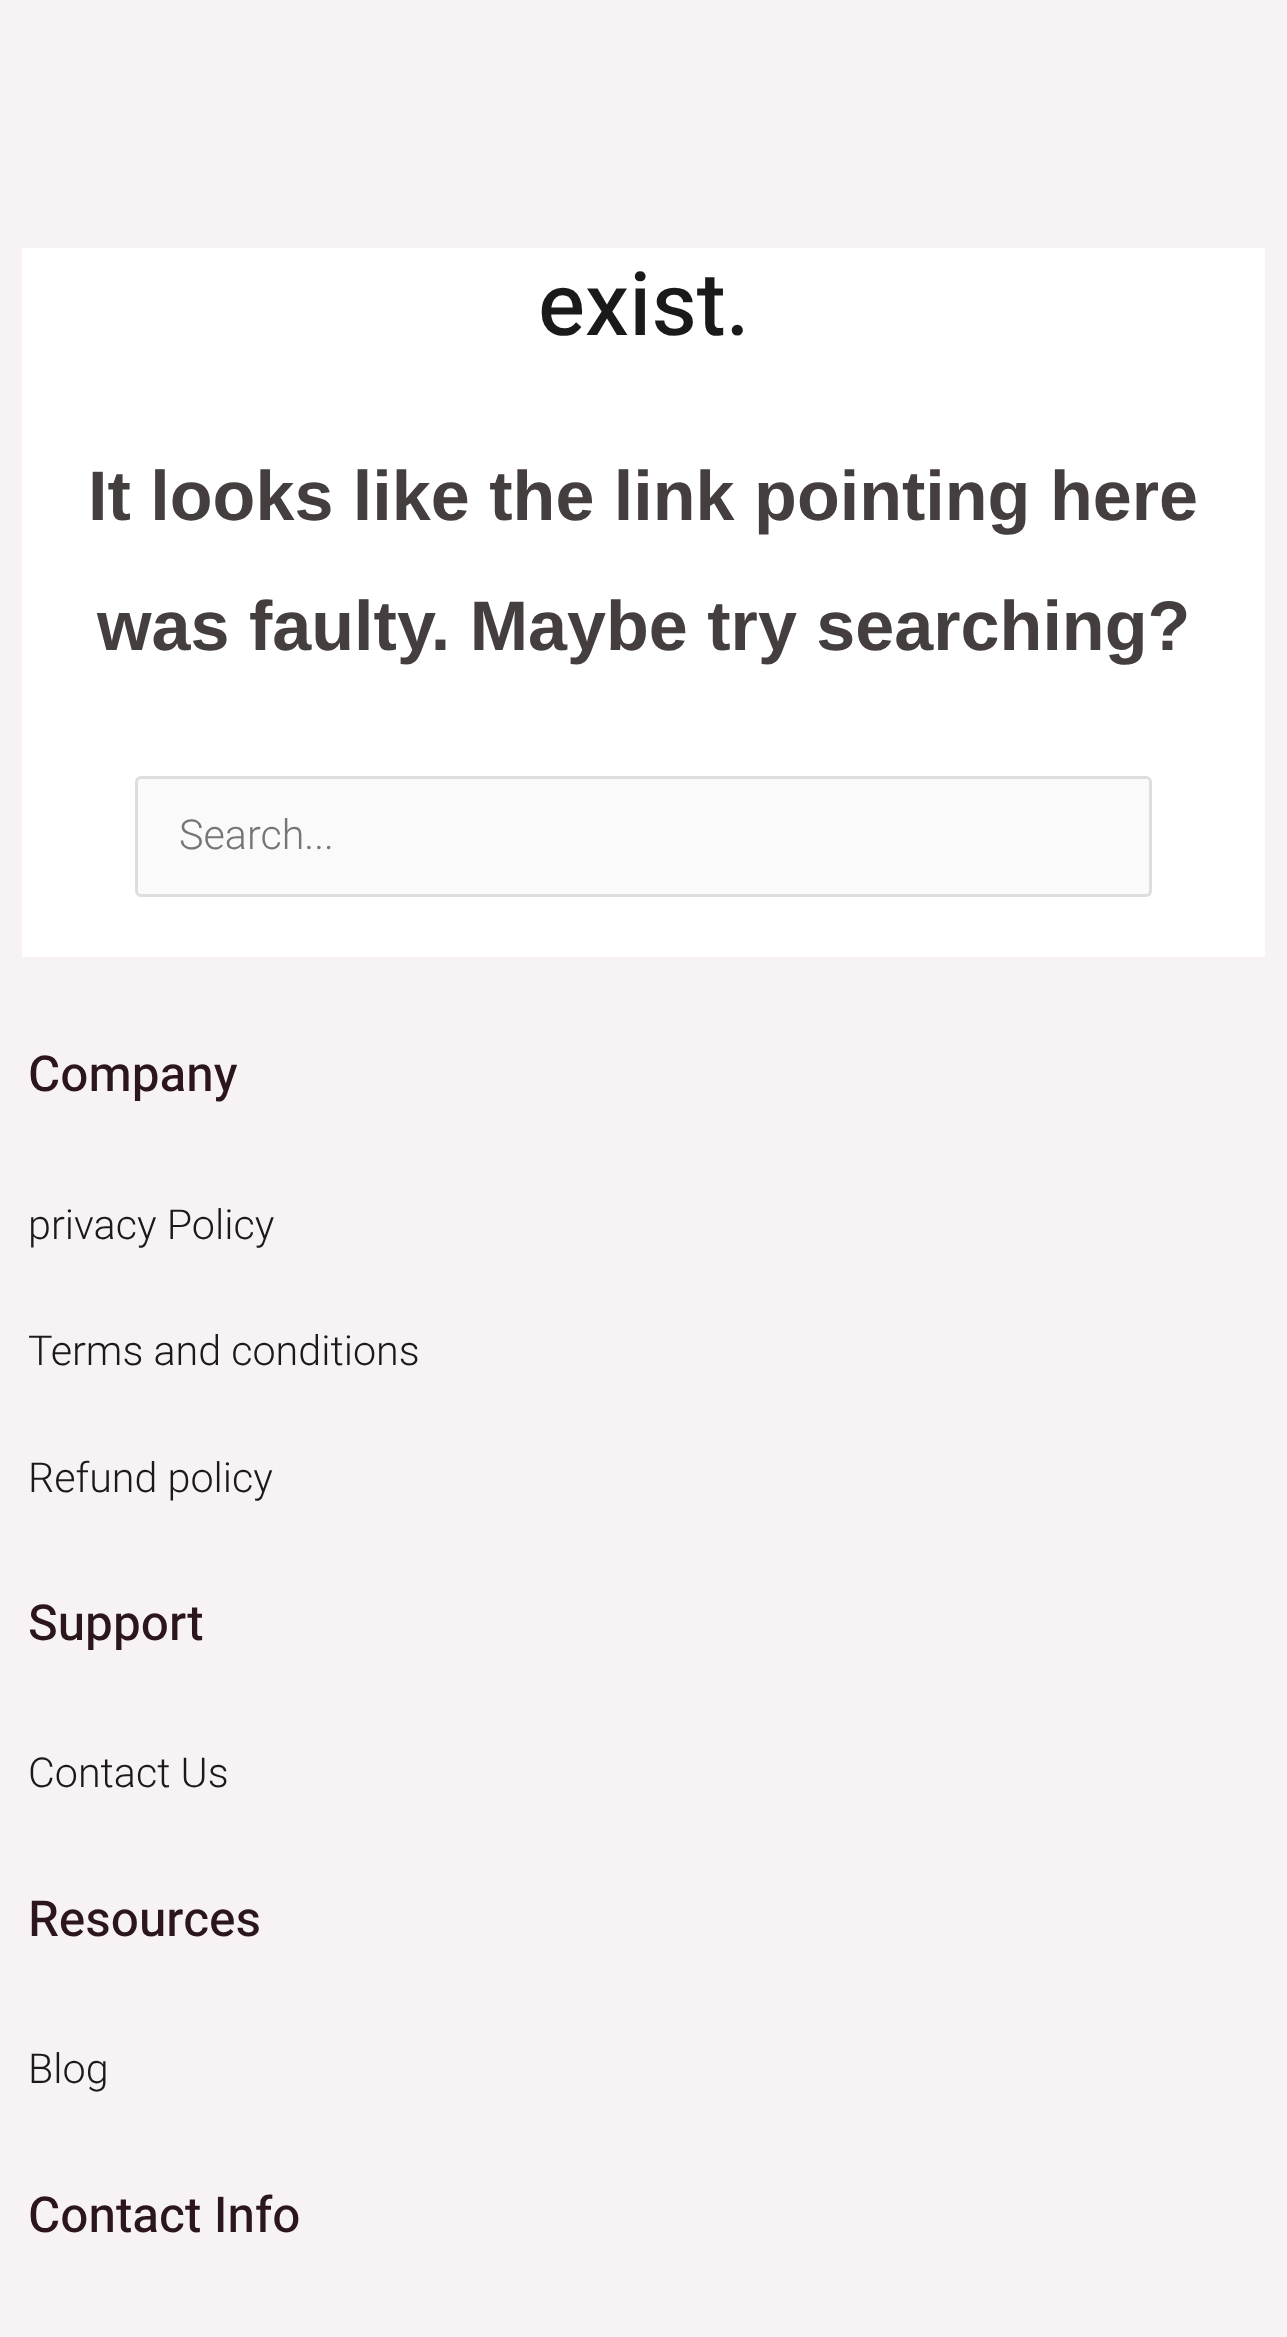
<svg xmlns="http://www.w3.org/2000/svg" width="1287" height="2337">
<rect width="100%" height="100%" fill="#f7f3f5"/>
<rect x="22" y="248" width="1243" height="709" fill="#fff"/>
<text x="538" y="335" style="font-family:Heebo;font-size:88px;font-weight:500;fill:#1a1a1a">exist.</text>
<text x="88" y="520" style="font-family:Liberation Sans;font-size:70.1px;font-weight:bold;fill:#453e3e">It looks like the link pointing here</text>
<text x="97" y="650" style="font-family:Liberation Sans;font-size:70.1px;font-weight:bold;fill:#453e3e">was faulty. Maybe try searching?</text>
<rect x="136.5" y="777.5" width="1014" height="118" rx="4.5" fill="#fafafa" stroke="#ddd" stroke-width="3"/>
<text x="179" y="849" style="font-family:Roboto;font-size:41.25px;font-weight:300;fill:#757575">Search...</text>
<text x="28" y="1091" style="font-family:Heebo;font-size:49.5px;font-weight:500;fill:#2b161b">Company</text>
<text x="28" y="1239" style="font-family:Roboto;font-size:41.25px;font-weight:300;fill:#1a1a1a">privacy Policy</text>
<text x="28" y="1365" style="font-family:Roboto;font-size:41.25px;font-weight:300;fill:#1a1a1a">Terms and conditions</text>
<text x="28" y="1492" style="font-family:Roboto;font-size:41.25px;font-weight:300;fill:#1a1a1a">Refund policy</text>
<text x="28" y="1640" style="font-family:Heebo;font-size:49.5px;font-weight:500;fill:#2b161b">Support</text>
<text x="28" y="1787" style="font-family:Roboto;font-size:41.25px;font-weight:300;fill:#1a1a1a">Contact Us</text>
<text x="28" y="1936" style="font-family:Heebo;font-size:49.5px;font-weight:500;fill:#2b161b">Resources</text>
<text x="28" y="2083" style="font-family:Roboto;font-size:41.25px;font-weight:300;fill:#1a1a1a">Blog</text>
<text x="28" y="2232" style="font-family:Heebo;font-size:49.5px;font-weight:500;fill:#2b161b">Contact Info</text>
</svg>
